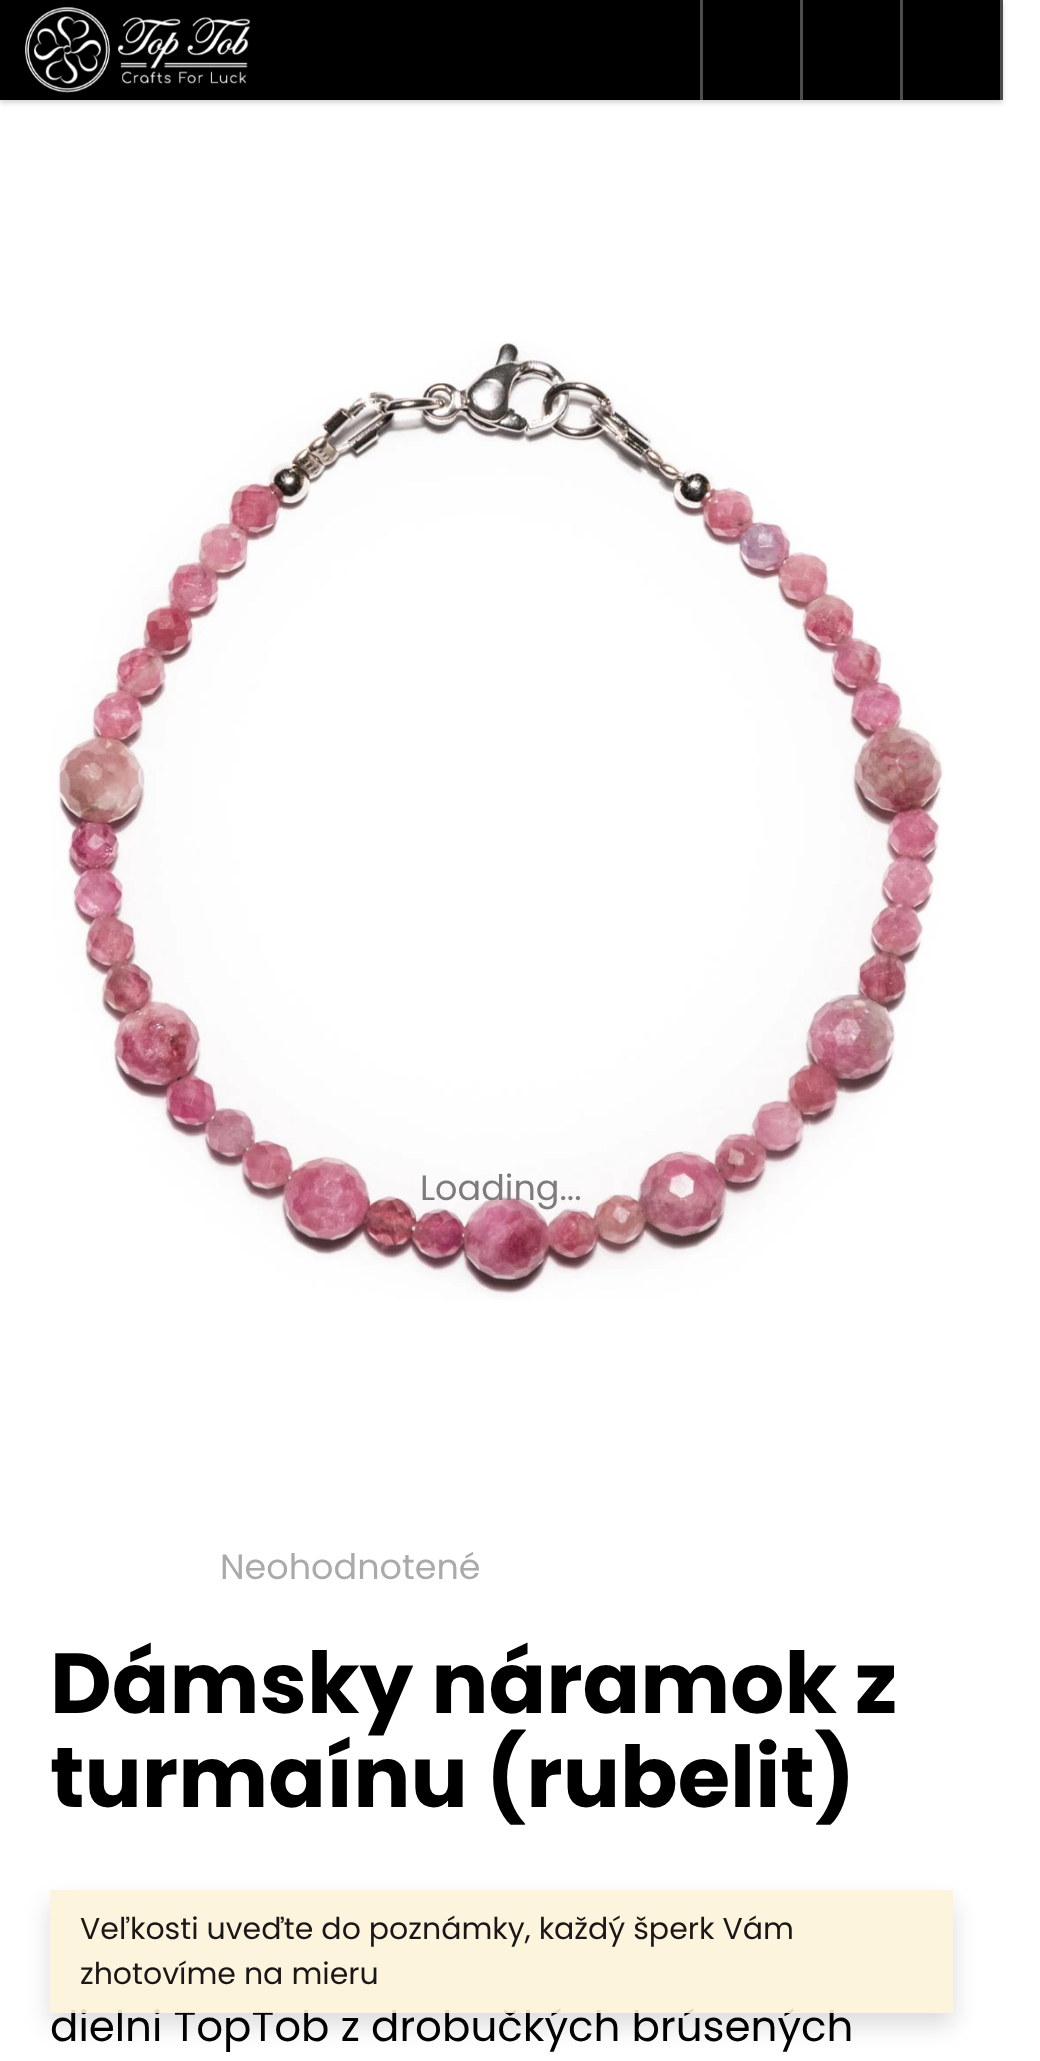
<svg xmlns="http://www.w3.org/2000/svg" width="1040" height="2061">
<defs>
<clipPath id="clip1"><path d="M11 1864h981v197h-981zm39 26h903v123h-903z" clip-rule="evenodd"/></clipPath>
</defs>
<rect width="100%" height="100%" fill="#fff"/>
<rect y="3" width="1003" height="100" fill="#00000029" filter="blur(2.5px)"/>
<rect width="1000" height="100" fill="#000"/>
<image x="25" y="7" width="225" height="86" href="media/1.png"/>
<rect x="1000" width="3" height="100" fill="#4d4d4d"/>
<rect x="700" width="3" height="100" fill="#4d4d4d"/>
<rect x="800" width="3" height="100" fill="#4d4d4d"/>
<rect x="900" width="3" height="100" fill="#4d4d4d"/>
<image x="50" y="341" width="895" height="959" href="media/2.png"/>
<text x="420" y="1200" style="font-family:Poppins;font-size:35px;fill:#7d7b7c">Loading...</text>
<text x="220" y="1579" style="font-family:Poppins;font-size:35px;fill:#aaa">Neohodnotené</text>
<text x="50" y="1713" style="font-family:Poppins;font-size:85px;font-weight:bold;fill:#000">Dámsky náramok z</text>
<text x="50" y="1807" style="font-family:Poppins;font-size:85px;font-weight:bold;fill:#000">turmaínu (rubelit)</text>
<text x="50" y="2041" style="font-family:Poppins;font-size:42px;fill:#000">dielni TopTob z drobučkých brúsených</text>
<g clip-path="url(#clip1)">
<rect x="50" y="1903" width="903" height="122" fill="#00000024" filter="blur(12.5px)"/>
</g>
<rect x="50" y="1890" width="903" height="123" fill="#fdf3dae6"/>
<text x="80" y="1939" style="font-family:Poppins;font-size:30px;fill:#191816">Veľkosti uveďte do poznámky, každý šperk Vám</text>
<text x="80" y="1984" style="font-family:Poppins;font-size:30px;fill:#191816">zhotovíme na mieru</text>
</svg>
